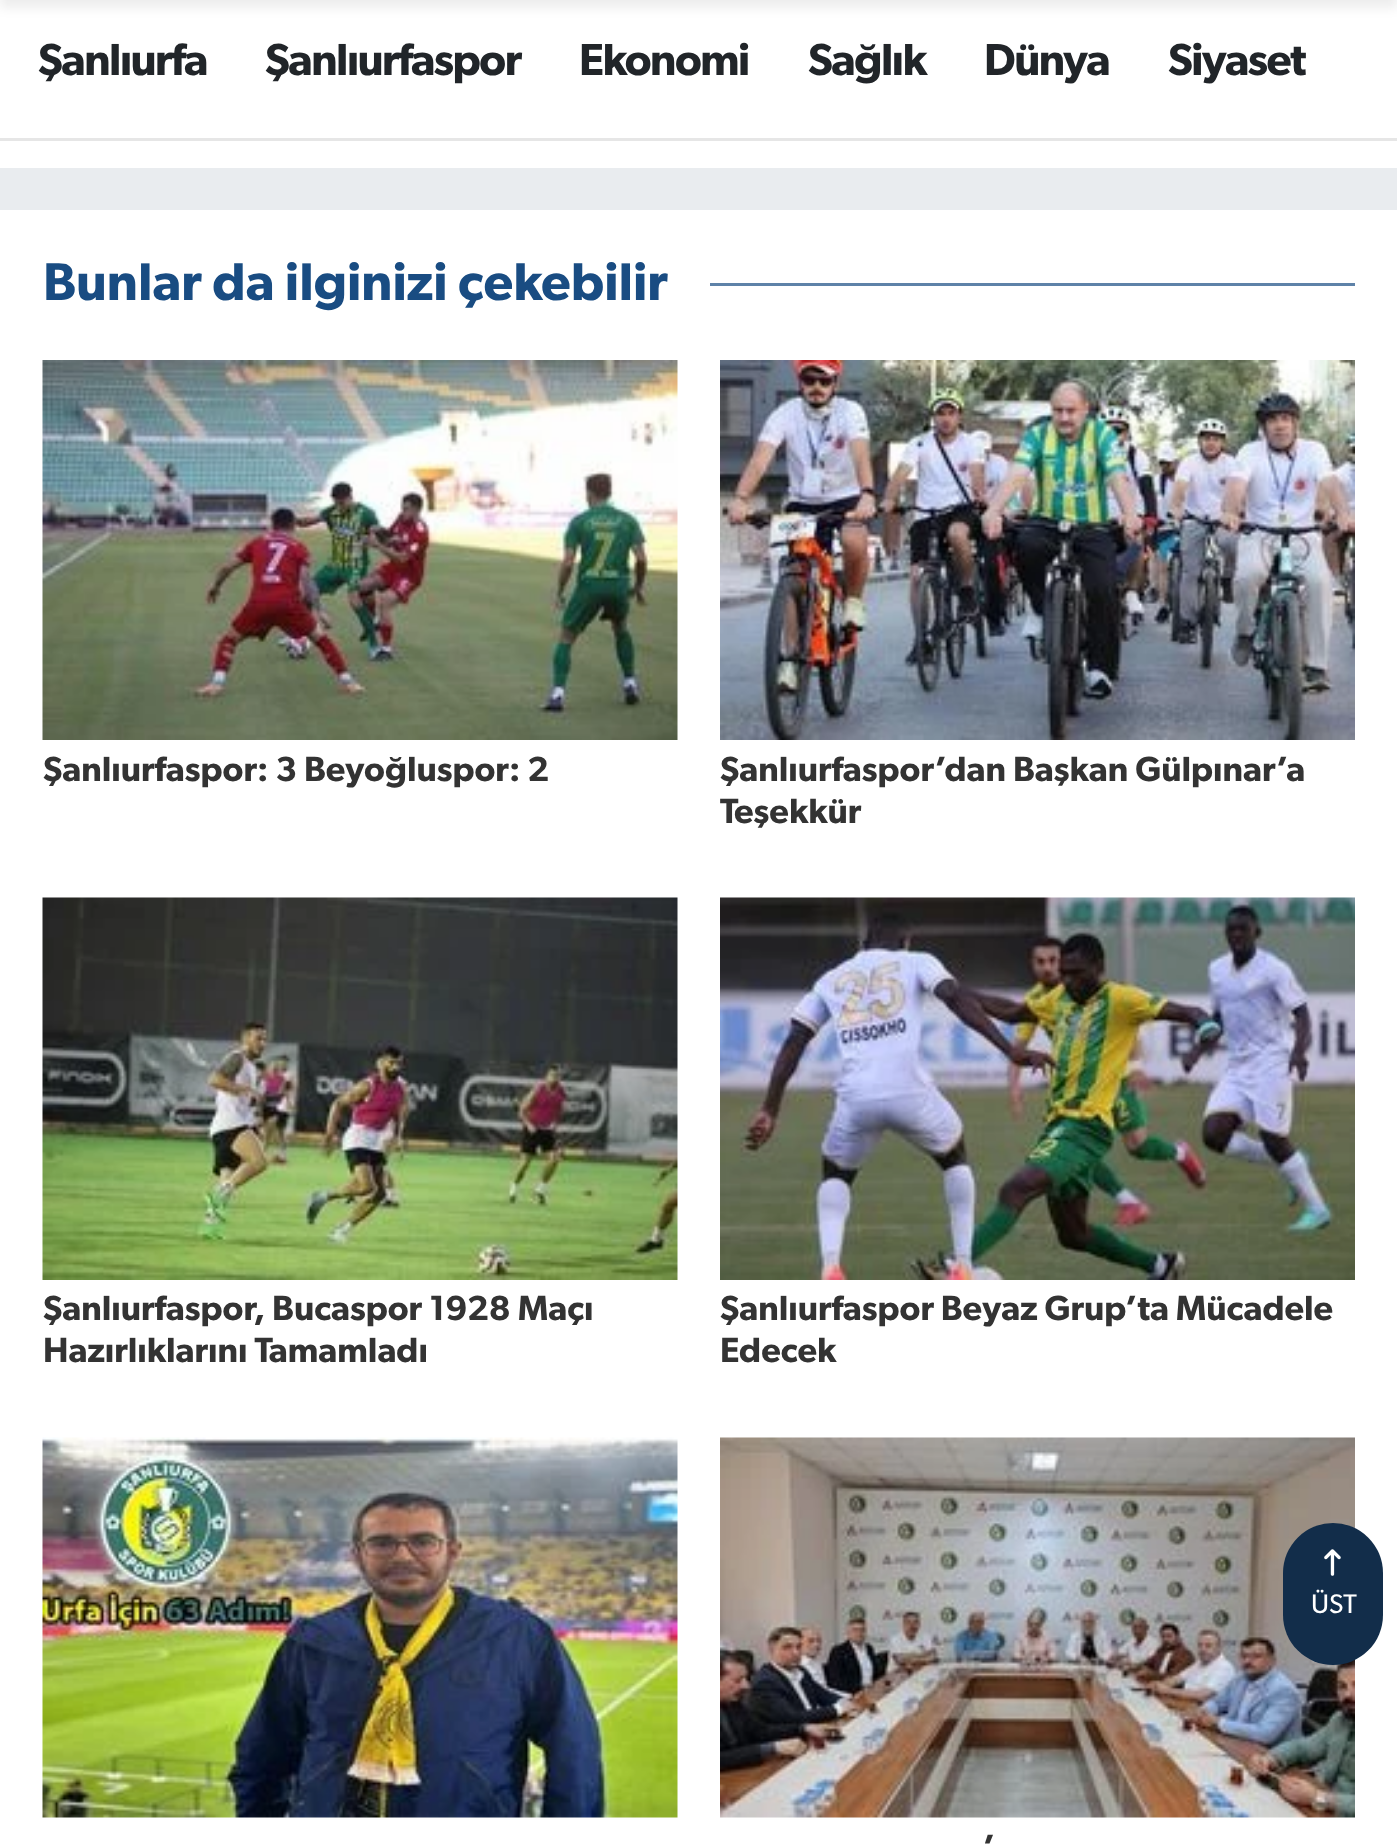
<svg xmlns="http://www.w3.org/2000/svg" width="1397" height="1848">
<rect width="100%" height="100%" fill="#e9ecef"/>
<rect width="1397" height="138" fill="#fff"/>
<rect y="-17" width="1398" height="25" fill="#00000012" filter="blur(5.5px)"/>
<rect y="138" width="1397" height="3" fill="#e6e6e6"/>
<text x="38" y="75" style="font-family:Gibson;font-size:45px;font-weight:600;letter-spacing:-1.5px;fill:#212529">Şanlıurfa</text>
<text x="265" y="75" style="font-family:Gibson;font-size:45px;font-weight:600;letter-spacing:-1.5px;fill:#212529">Şanlıurfaspor</text>
<text x="579" y="75" style="font-family:Gibson;font-size:45px;font-weight:600;letter-spacing:-1.5px;fill:#212529">Ekonomi</text>
<text x="808" y="75" style="font-family:Gibson;font-size:45px;font-weight:600;letter-spacing:-1.5px;fill:#212529">Sağlık</text>
<text x="984" y="75" style="font-family:Gibson;font-size:45px;font-weight:600;letter-spacing:-1.5px;fill:#212529">Dünya</text>
<text x="1168" y="75" style="font-family:Gibson;font-size:45px;font-weight:600;letter-spacing:-1.5px;fill:#212529">Siyaset</text>
<rect y="141" width="1397" height="27" fill="#fff"/>
<rect y="210" width="1397" height="1638" fill="#fff"/>
<text x="43" y="300" style="font-family:Gibson;font-size:53.1px;font-weight:600;fill:#194c82">Bunlar da ilginizi çekebilir</text>
<rect x="710" y="283" width="645" height="3" fill="#5e82a8"/>
<image x="42" y="360" width="636" height="380" href="media/1.png"/>
<text x="43" y="781" style="font-family:Gibson;font-size:35px;font-weight:600;fill:#333">Şanlıurfaspor: 3 Beyoğluspor: 2</text>
<image x="720" y="360" width="635" height="380" href="media/2.png"/>
<text x="720" y="781" style="font-family:Gibson;font-size:35px;font-weight:600;fill:#333">Şanlıurfaspor’dan Başkan Gülpınar’a</text>
<text x="720" y="823" style="font-family:Gibson;font-size:35px;font-weight:600;fill:#333">Teşekkür</text>
<image x="42" y="897" width="636" height="383" href="media/3.png"/>
<text x="43" y="1320" style="font-family:Gibson;font-size:35px;font-weight:600;fill:#333">Şanlıurfaspor, Bucaspor 1928 Maçı</text>
<text x="43" y="1362" style="font-family:Gibson;font-size:35px;font-weight:600;fill:#333">Hazırlıklarını Tamamladı</text>
<image x="720" y="897" width="635" height="383" href="media/4.png"/>
<text x="720" y="1320" style="font-family:Gibson;font-size:35px;font-weight:600;fill:#333">Şanlıurfaspor Beyaz Grup’ta Mücadele</text>
<text x="720" y="1362" style="font-family:Gibson;font-size:35px;font-weight:600;fill:#333">Edecek</text>
<image x="42" y="1437" width="636" height="381" href="media/5.png"/>
<image x="720" y="1437" width="635" height="381" href="media/6.png"/>
<text x="983" y="1859" style="font-family:Gibson;font-size:35px;font-weight:600;fill:#333">’</text>
<rect x="1283" y="1523" width="100" height="142" rx="50" fill="#122d4a"/>
<image x="1324" y="1549" width="17" height="27" href="media/7.png"/>
<text x="1311" y="1613" style="font-family:Gibson;font-size:27px;fill:#fff">ÜST</text>
</svg>
